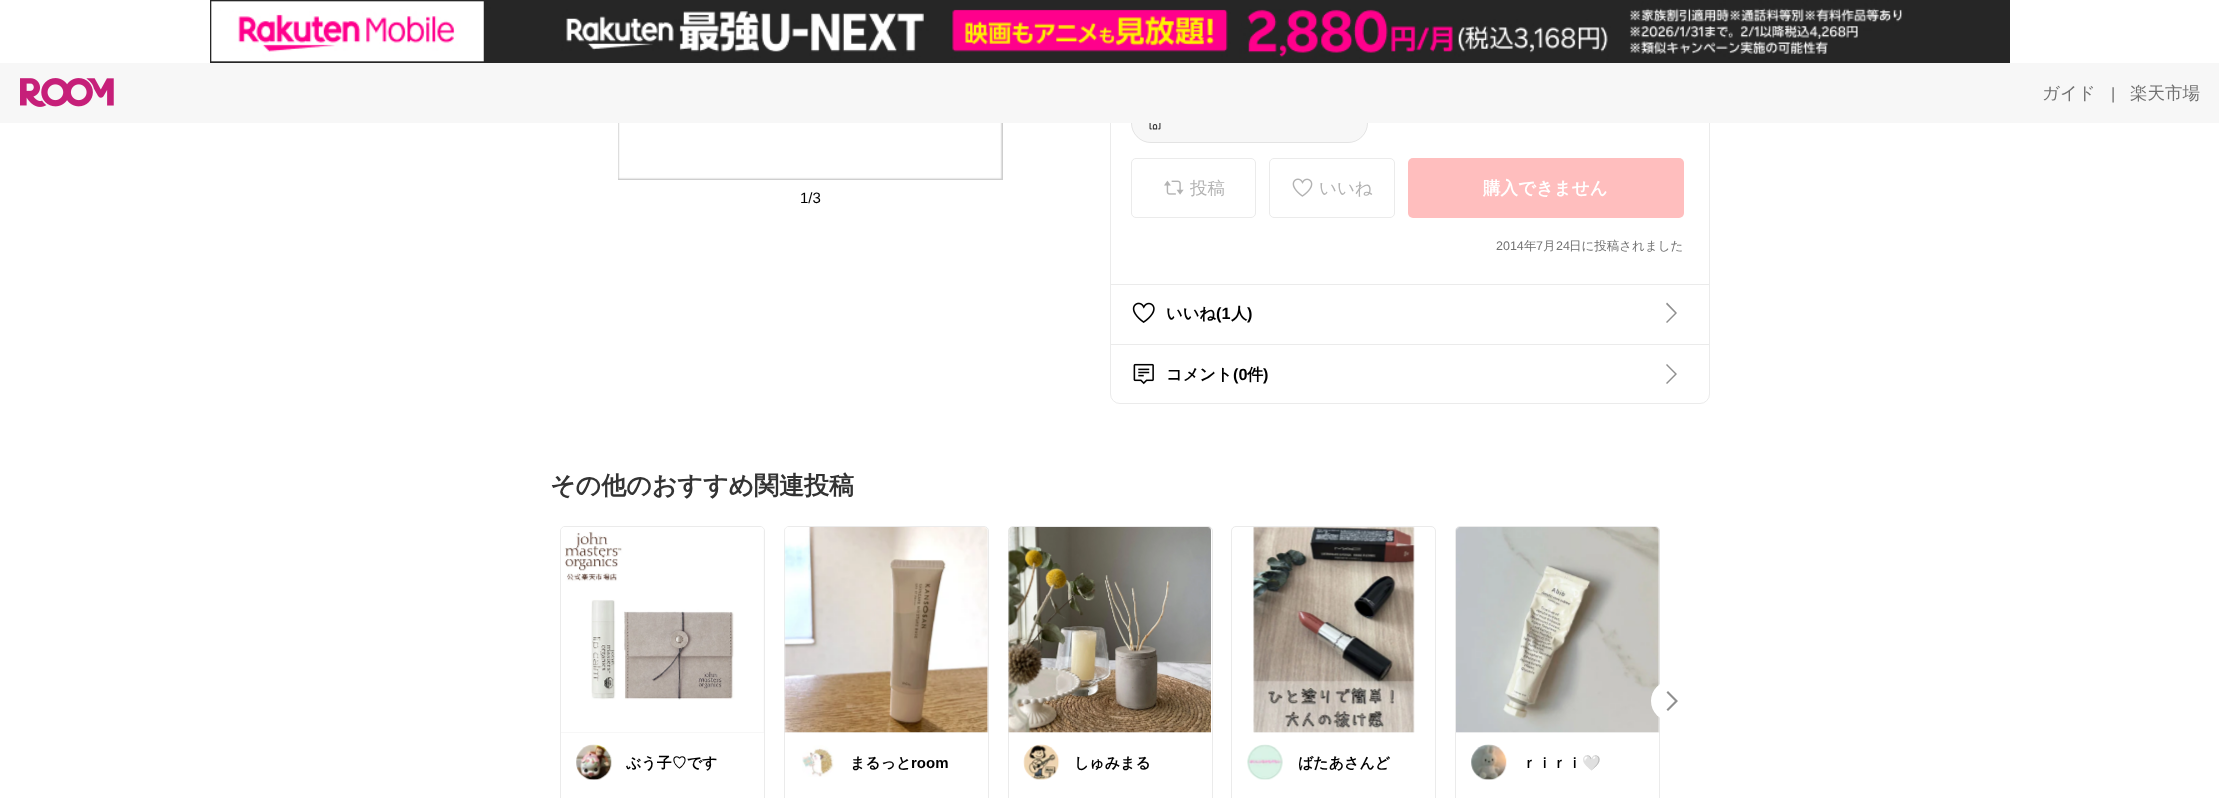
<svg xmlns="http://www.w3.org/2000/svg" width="2219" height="798">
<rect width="100%" height="100%" fill="#fff"/>
<rect x="1110.5" y="-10.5" width="599" height="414" rx="9.5" fill="none" stroke="#ebebeb"/>
<image x="210" y="0" width="1800" height="63" href="media/1.png"/>
<rect x="1131" y="103" width="237" height="40" rx="20" fill="#f7f7f7"/>
<rect x="1131.5" y="103.5" width="236" height="39" rx="19.5" fill="none" stroke="#00000014"/>
<rect y="63" width="2219" height="60" fill="#f7f7f7"/>
<image x="20" y="78" width="94" height="29" href="media/2.png"/>
<text x="2042" y="99" style="font-family:WenQuanYi Zen Hei;font-size:17.5px;font-weight:500;fill:#717171">ガイド</text>
<text x="2111" y="99" style="font-family:Liberation Sans;font-size:16.25px;fill:#717171">|</text>
<text x="2130" y="99" style="font-family:WenQuanYi Zen Hei;font-size:17.5px;font-weight:500;fill:#717171">楽天市場</text>
<image x="618" y="123" width="385" height="57" href="media/3.png"/>
<text x="800" y="203" style="font-family:Liberation Sans;font-size:15px;fill:#000">1/3</text>
<rect x="1111" y="284" width="598" height="1" fill="#ebebeb"/>
<image x="1149" y="123" width="12" height="7" href="media/4.png"/>
<rect x="1131.5" y="158.5" width="124" height="59" rx="4.5" fill="none" stroke="#ebebeb"/>
<image x="1164" y="180" width="20" height="15" href="media/5.png"/>
<text x="1190" y="194" style="font-family:WenQuanYi Zen Hei;font-size:17.5px;font-weight:500;fill:#b3b3b3">投稿</text>
<rect x="1269.5" y="158.5" width="125" height="59" rx="4.5" fill="none" stroke="#ebebeb"/>
<image x="1292" y="178" width="21" height="19" href="media/6.png"/>
<text x="1319" y="194" style="font-family:WenQuanYi Zen Hei;font-size:17.5px;font-weight:500;fill:#b3b3b3">いいね</text>
<rect x="1408" y="158" width="276" height="60" rx="5" fill="#ffbebe"/>
<text x="1483" y="194" style="font-family:WenQuanYi Zen Hei;font-size:17.5px;font-weight:bold;fill:#fff">購入できません</text>
<text x="1496" y="250" style="font-family:Liberation Sans;font-size:12.5px;fill:#717171">2014</text>
<text x="1524" y="250" style="font-family:WenQuanYi Zen Hei;font-size:12.5px;font-weight:500;fill:#717171">年</text>
<text x="1536" y="250" style="font-family:Liberation Sans;font-size:12.5px;fill:#717171">7</text>
<text x="1543" y="250" style="font-family:WenQuanYi Zen Hei;font-size:12.5px;font-weight:500;fill:#717171">月</text>
<text x="1556" y="250" style="font-family:Liberation Sans;font-size:12.5px;fill:#717171">24</text>
<text x="1569" y="250" style="font-family:WenQuanYi Zen Hei;font-size:12.5px;font-weight:500;fill:#717171">日に投稿されました</text>
<rect x="1111" y="344" width="598" height="1" fill="#ebebeb"/>
<image x="1132" y="302" width="23" height="21" href="media/7.png"/>
<text x="1166" y="319" style="font-family:WenQuanYi Zen Hei;font-size:16.25px;font-weight:bold;fill:#000">いいね</text>
<text x="1216" y="319" style="font-family:Liberation Sans;font-size:16.25px;font-weight:bold;fill:#000">(1</text>
<text x="1231" y="319" style="font-family:WenQuanYi Zen Hei;font-size:16.25px;font-weight:bold;fill:#000">人</text>
<text x="1247" y="319" style="font-family:Liberation Sans;font-size:16.25px;font-weight:bold;fill:#000">)</text>
<path d="M1667 302.5l-1 1.5l9 9l-9 9l1 1l10-10z" fill="#8f8f8f"/>
<image x="1133" y="363" width="21" height="22" href="media/8.png"/>
<text x="1166" y="380" style="font-family:WenQuanYi Zen Hei;font-size:16.25px;font-weight:bold;fill:#000">コメント</text>
<text x="1233" y="380" style="font-family:Liberation Sans;font-size:16.25px;font-weight:bold;fill:#000">(0</text>
<text x="1247" y="380" style="font-family:WenQuanYi Zen Hei;font-size:16.25px;font-weight:bold;fill:#000">件</text>
<text x="1263" y="380" style="font-family:Liberation Sans;font-size:16.25px;font-weight:bold;fill:#000">)</text>
<path d="M1667 364l-1 1l9 9l-9 9l1 1l10-10z" fill="#8f8f8f"/>
<text x="550" y="494" style="font-family:WenQuanYi Zen Hei;font-size:25px;font-weight:bold;fill:#333">その他のおすすめ関連投稿</text>
<rect x="1455.5" y="526.5" width="204" height="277" rx="4.5" fill="none" stroke="#ebebeb"/>
<path d="M1460 528h195c2 0 4 2 4 4v201h-203v-201c0-2 2-4 4-4z" fill="#f7f7f7"/>
<image x="1456" y="527" width="204" height="206" href="media/17.png"/>
<circle cx="1671" cy="701" r="20" fill="#fff"/>
<path d="M1678 701l-10-10l-1.5 1.5l8.5 8.5l-8.5 8.5l1.5 1.5z" fill="#8f8f8f"/>
<rect x="560.5" y="526.5" width="204" height="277" rx="4.5" fill="none" stroke="#ebebeb"/>
<path d="M565 528h195c2 0 4 2 4 4v201h-203v-201c0-2 2-4 4-4z" fill="#f7f7f7"/>
<image x="561" y="527" width="203" height="205" href="media/9.png"/>
<image x="576" y="744" width="36" height="36" href="media/10.png"/>
<text x="626" y="768" style="font-family:WenQuanYi Zen Hei;font-size:15px;font-weight:bold;fill:#000">ぶう子♡です</text>
<rect x="784.5" y="526.5" width="204" height="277" rx="4.5" fill="none" stroke="#ebebeb"/>
<path d="M789 528h195c2 0 4 2 4 4v201h-203v-201c0-2 2-4 4-4z" fill="#f7f7f7"/>
<image x="784" y="527" width="205" height="206" href="media/11.png"/>
<image x="802" y="745" width="32" height="32" href="media/12.png"/>
<text x="850" y="768" style="font-family:WenQuanYi Zen Hei;font-size:15px;font-weight:bold;fill:#000">まるっと</text>
<text x="911" y="768" style="font-family:Liberation Sans;font-size:15px;font-weight:bold;fill:#000">room</text>
<rect x="1008.5" y="526.5" width="204" height="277" rx="4.5" fill="none" stroke="#ebebeb"/>
<path d="M1013 528h194c2 0 4 2 4 4v201h-202v-201c0-2 2-4 4-4z" fill="#f7f7f7"/>
<image x="1008" y="527" width="203" height="206" href="media/13.png"/>
<image x="1023" y="744" width="37" height="36" href="media/14.png"/>
<text x="1074" y="768" style="font-family:WenQuanYi Zen Hei;font-size:15px;font-weight:bold;fill:#000">しゅみまる</text>
<rect x="1231.5" y="526.5" width="204" height="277" rx="4.5" fill="none" stroke="#ebebeb"/>
<rect x="1254" y="528" width="160" height="205" fill="#f7f7f7"/>
<image x="1253" y="527" width="162" height="206" href="media/15.png"/>
<image x="1247" y="744" width="36" height="36" href="media/16.png"/>
<text x="1298" y="768" style="font-family:WenQuanYi Zen Hei;font-size:15px;font-weight:bold;fill:#000">ばたあさんど</text>
<image x="1471" y="744" width="36" height="36" href="media/18.png"/>
<text x="1522" y="768" style="font-family:WenQuanYi Zen Hei;font-size:15px;font-weight:bold;fill:#000">ｒｉｒｉ</text>
<text x="1582" y="768" style="font-family:Noto Color Emoji;font-size:15px;font-weight:bold;fill:#000">🤍</text>
</svg>
